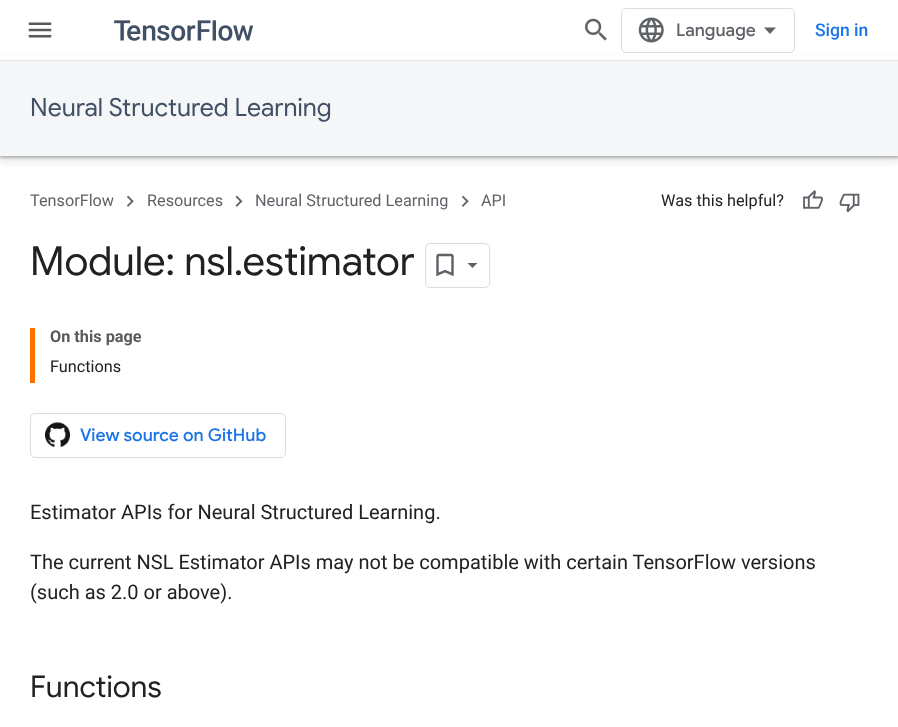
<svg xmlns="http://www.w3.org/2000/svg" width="898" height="727">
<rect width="100%" height="100%" fill="#fff"/>
<rect x="-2" y="61" width="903" height="100" fill="#3c404326" filter="blur(4px)"/>
<rect y="63" width="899" height="95" fill="#3c40434d" filter="blur(1px)"/>
<rect y="56" width="898" height="4" fill="#fff"/>
<rect y="60" width="898" height="1" fill="#e6e6e6"/>
<image x="28" y="22" width="24" height="16" href="media/1.png"/>
<image x="114" y="20" width="140" height="21" href="media/2.png"/>
<image x="585" y="18" width="22" height="23" href="media/3.png"/>
<rect x="621.5" y="8.5" width="173" height="44" rx="4.5" fill="none" stroke="#dadce0"/>
<image x="638" y="17" width="26" height="26" href="media/4.png"/>
<text x="676" y="36" style="font-family:Google Sans;font-size:17.5px;font-weight:500;fill:#5f6368">Language</text>
<path d="M770 34l-6-6.5h12z" fill="#5f6368"/>
<text x="815" y="36" style="font-family:Roboto;font-size:17.5px;font-weight:500;fill:#1a73e8">Sign in</text>
<rect y="61" width="898" height="95" fill="#f5f6f7"/>
<text x="30" y="116" style="font-family:Google Sans;font-size:25px;fill:#425066">Neural Structured Learning</text>
<text x="30" y="206" style="font-family:Roboto;font-size:16.25px;fill:#5f6368">TensorFlow</text>
<image x="126" y="195" width="8" height="12" href="media/5.png"/>
<text x="147" y="206" style="font-family:Roboto;font-size:16.25px;fill:#5f6368">Resources</text>
<image x="235" y="195" width="8" height="12" href="media/6.png"/>
<text x="255" y="206" style="font-family:Roboto;font-size:16.25px;fill:#5f6368">Neural Structured Learning</text>
<image x="461" y="195" width="8" height="12" href="media/5.png"/>
<text x="481" y="206" style="font-family:Roboto;font-size:16.25px;fill:#5f6368">API</text>
<text x="661" y="206" style="font-family:Roboto;font-size:16.25px;fill:#202124">Was this helpful?</text>
<image x="803" y="190" width="20" height="19" href="media/7.png"/>
<image x="839" y="193" width="21" height="20" href="media/8.png"/>
<text x="30" y="275" style="font-family:Google Sans;font-size:40px;fill:#202124">Module: nsl.estimator</text>
<rect x="425.5" y="243.5" width="64" height="44" rx="4.5" fill="none" stroke="#dadce0"/>
<image x="436" y="253" width="18" height="24" href="media/9.png"/>
<path d="M467.5 263h10l-5 5z" fill="#5f6368"/>
<rect x="30" y="328" width="5" height="55" fill="#ff6f00"/>
<text x="50" y="342" style="font-family:Roboto;font-size:16.25px;font-weight:bold;fill:#595959">On this page</text>
<text x="50" y="372" style="font-family:Roboto;font-size:16.25px;fill:#202124">Functions</text>
<rect x="30.5" y="413.5" width="255" height="44" rx="4.5" fill="none" stroke="#dadce0"/>
<image x="45" y="422" width="25" height="25" href="media/10.png"/>
<text x="80" y="441" style="font-family:Google Sans;font-size:17.5px;font-weight:500;fill:#1a73e8">View source on GitHub</text>
<text x="30" y="519" style="font-family:Roboto;font-size:20px;fill:#202124">Estimator APIs for Neural Structured Learning.</text>
<text x="30" y="569" style="font-family:Roboto;font-size:20px;fill:#202124">The current NSL Estimator APIs may not be compatible with certain TensorFlow versions</text>
<text x="30" y="599" style="font-family:Roboto;font-size:20px;fill:#202124">(such as 2.0 or above).</text>
<text x="30" y="697" style="font-family:Google Sans;font-size:30px;fill:#202124">Functions</text>
</svg>
